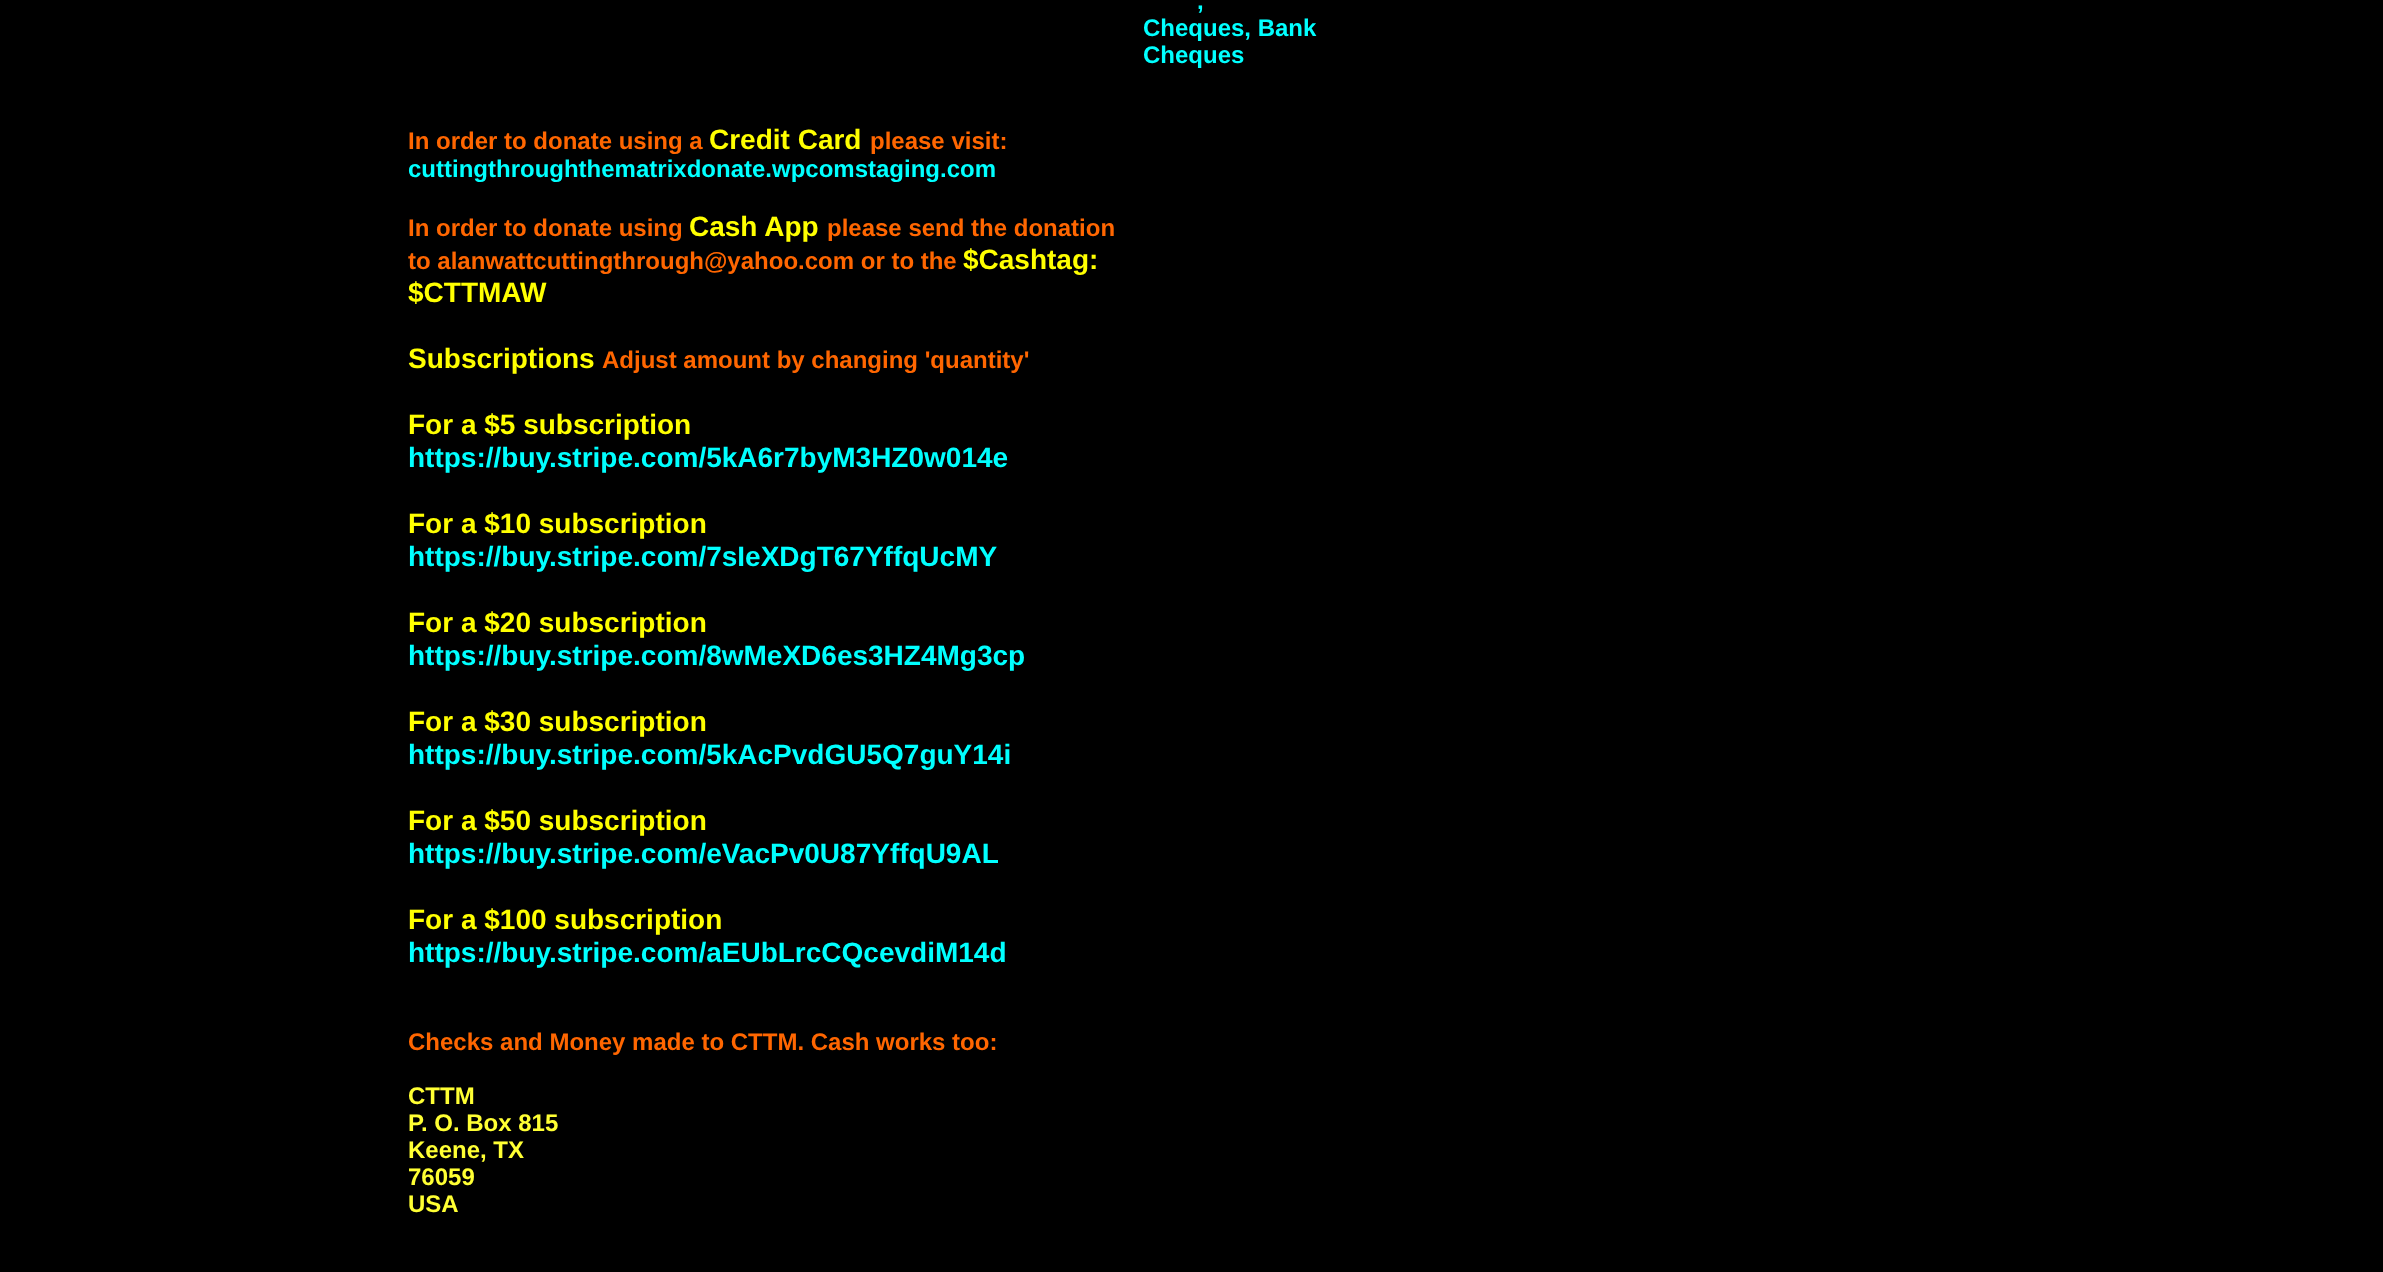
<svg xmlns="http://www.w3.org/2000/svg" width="2383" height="1272">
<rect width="100%" height="100%" fill="#000"/>
<text x="1197" y="9" style="font-family:Liberation Sans;font-size:24px;font-weight:bold;fill:#0ff">,</text>
<text x="1143" y="36" style="font-family:Liberation Sans;font-size:24px;font-weight:bold;fill:#0ff">Cheques, Bank</text>
<text x="1143" y="63" style="font-family:Liberation Sans;font-size:24px;font-weight:bold;fill:#0ff">Cheques</text>
<text x="408" y="149" style="font-family:Liberation Sans;font-size:24px;font-weight:bold;fill:#f60">In order to donate using a</text>
<text x="709" y="149" style="font-family:Liberation Sans;font-size:28px;font-weight:bold;fill:#ff0">Credit Card</text>
<text x="870" y="149" style="font-family:Liberation Sans;font-size:24px;font-weight:bold;fill:#f60">please visit:</text>
<text x="408" y="177" style="font-family:Liberation Sans;font-size:24px;font-weight:bold;fill:#0ff">cuttingthroughthematrixdonate.wpcomstaging.com</text>
<text x="408" y="236" style="font-family:Liberation Sans;font-size:24px;font-weight:bold;fill:#f60">In order to donate using</text>
<text x="689" y="236" style="font-family:Liberation Sans;font-size:28px;font-weight:bold;fill:#ff0">Cash App</text>
<text x="827" y="236" style="font-family:Liberation Sans;font-size:24px;font-weight:bold;fill:#f60">please send the donation</text>
<text x="408" y="269" style="font-family:Liberation Sans;font-size:24px;font-weight:bold;fill:#f60">to alanwattcuttingthrough@yahoo.com or to the</text>
<text x="963" y="269" style="font-family:Liberation Sans;font-size:28px;font-weight:bold;fill:#ff0">$Cashtag:</text>
<text x="408" y="302" style="font-family:Liberation Sans;font-size:28px;font-weight:bold;fill:#ff0">$CTTMAW</text>
<text x="408" y="368" style="font-family:Liberation Sans;font-size:28px;font-weight:bold;fill:#ff0">Subscriptions</text>
<text x="602" y="368" style="font-family:Liberation Sans;font-size:24px;font-weight:bold;fill:#f60">Adjust amount by changing 'quantity'</text>
<text x="408" y="434" style="font-family:Liberation Sans;font-size:28px;font-weight:bold;fill:#ff0">For a $5 subscription</text>
<text x="408" y="467" style="font-family:Liberation Sans;font-size:28px;font-weight:bold;fill:#0ff">https://buy.stripe.com/5kA6r7byM3HZ0w014e</text>
<text x="408" y="533" style="font-family:Liberation Sans;font-size:28px;font-weight:bold;fill:#ff0">For a $10 subscription</text>
<text x="408" y="566" style="font-family:Liberation Sans;font-size:28px;font-weight:bold;fill:#0ff">https://buy.stripe.com/7sIeXDgT67YffqUcMY</text>
<text x="408" y="632" style="font-family:Liberation Sans;font-size:28px;font-weight:bold;fill:#ff0">For a $20 subscription</text>
<text x="408" y="665" style="font-family:Liberation Sans;font-size:28px;font-weight:bold;fill:#0ff">https://buy.stripe.com/8wMeXD6es3HZ4Mg3cp</text>
<text x="408" y="731" style="font-family:Liberation Sans;font-size:28px;font-weight:bold;fill:#ff0">For a $30 subscription</text>
<text x="408" y="764" style="font-family:Liberation Sans;font-size:28px;font-weight:bold;fill:#0ff">https://buy.stripe.com/5kAcPvdGU5Q7guY14i</text>
<text x="408" y="830" style="font-family:Liberation Sans;font-size:28px;font-weight:bold;fill:#ff0">For a $50 subscription</text>
<text x="408" y="863" style="font-family:Liberation Sans;font-size:28px;font-weight:bold;fill:#0ff">https://buy.stripe.com/eVacPv0U87YffqU9AL</text>
<text x="408" y="929" style="font-family:Liberation Sans;font-size:28px;font-weight:bold;fill:#ff0">For a $100 subscription</text>
<text x="408" y="962" style="font-family:Liberation Sans;font-size:28px;font-weight:bold;fill:#0ff">https://buy.stripe.com/aEUbLrcCQcevdiM14d</text>
<text x="408" y="1050" style="font-family:Liberation Sans;font-size:24px;font-weight:bold;fill:#f60">Checks and Money made to CTTM. Cash works too:</text>
<text x="408" y="1104" style="font-family:Liberation Sans;font-size:24px;font-weight:bold;fill:#ff3">CTTM</text>
<text x="408" y="1131" style="font-family:Liberation Sans;font-size:24px;font-weight:bold;fill:#ff3">P. O. Box 815</text>
<text x="408" y="1158" style="font-family:Liberation Sans;font-size:24px;font-weight:bold;fill:#ff3">Keene, TX</text>
<text x="408" y="1185" style="font-family:Liberation Sans;font-size:24px;font-weight:bold;fill:#ff3">76059</text>
<text x="408" y="1212" style="font-family:Liberation Sans;font-size:24px;font-weight:bold;fill:#ff3">USA</text>
</svg>
